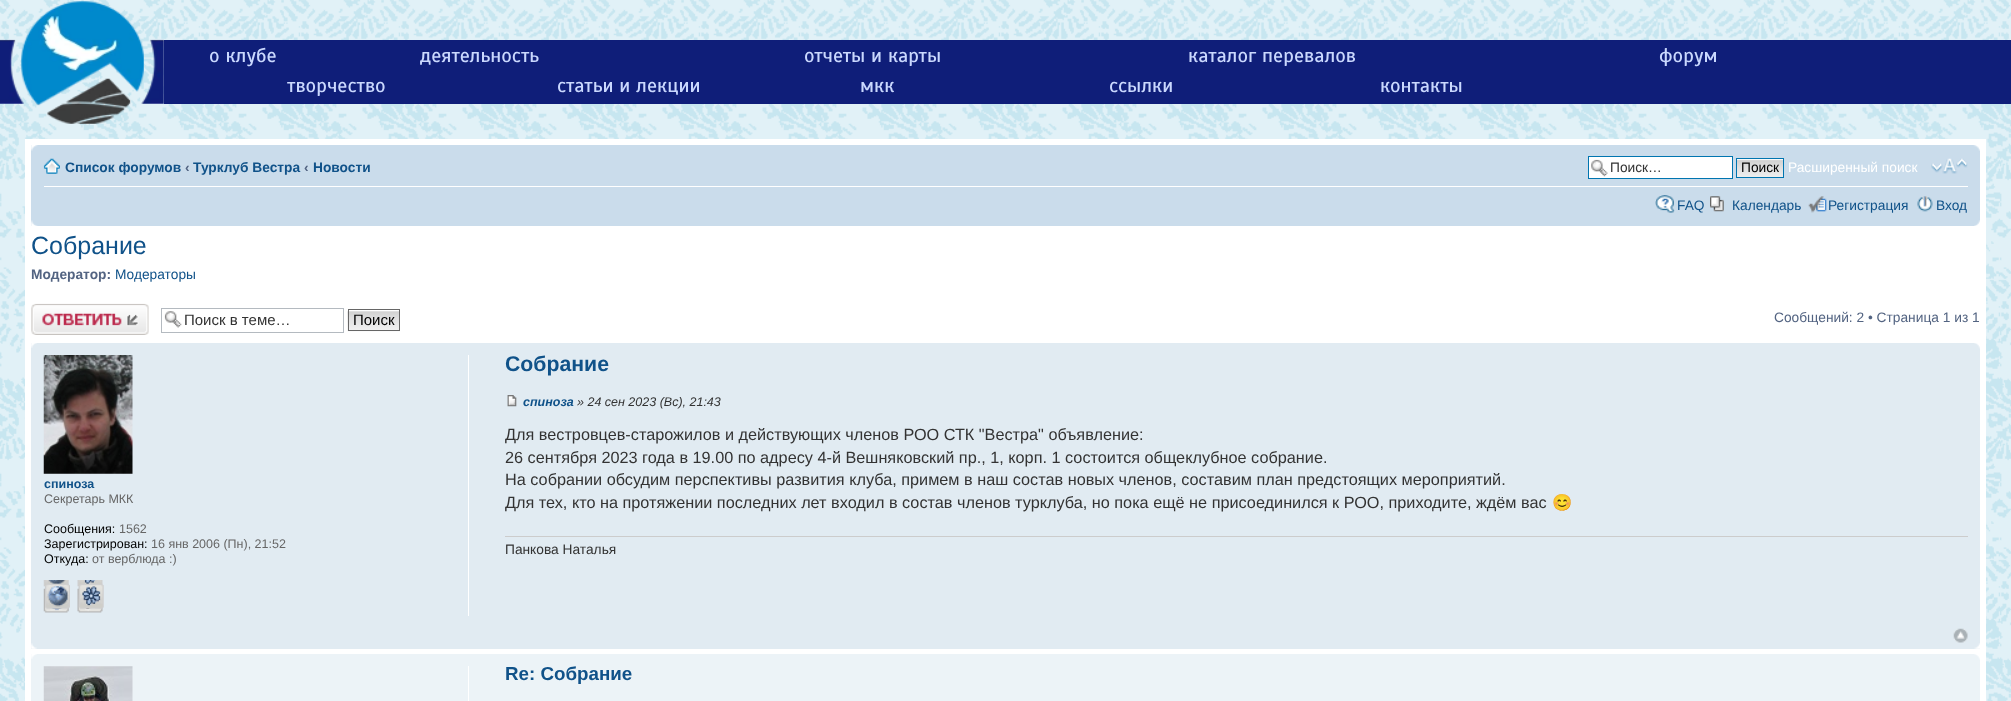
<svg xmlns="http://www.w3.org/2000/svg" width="2011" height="701">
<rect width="100%" height="100%" fill="#fff"/>
<image x="0" y="0" width="2011" height="701" href="media/1.png"/>
<image x="0" y="1" width="164" height="123" href="media/2.png"/>
<rect x="164" y="40" width="1847" height="64" fill="#0f1e79"/>
<text x="209" y="62" style="font-family:Scada;font-size:20px;fill:#cad8fe">о клубе</text>
<text x="420" y="62" style="font-family:Scada;font-size:20px;fill:#cad8fe">деятельность</text>
<text x="804" y="62" style="font-family:Scada;font-size:20px;fill:#cad8fe">отчеты и карты</text>
<text x="1188" y="62" style="font-family:Scada;font-size:20px;fill:#cad8fe">каталог перевалов</text>
<text x="1659" y="62" style="font-family:Scada;font-size:20px;fill:#cad8fe">форум</text>
<text x="287" y="92" style="font-family:Scada;font-size:20px;fill:#cad8fe">творчество</text>
<text x="557" y="92" style="font-family:Scada;font-size:20px;fill:#cad8fe">статьи и лекции</text>
<text x="860" y="92" style="font-family:Scada;font-size:20px;fill:#cad8fe">мкк</text>
<text x="1109" y="92" style="font-family:Scada;font-size:20px;fill:#cad8fe">ссылки</text>
<text x="1380" y="92" style="font-family:Scada;font-size:20px;fill:#cad8fe">контакты</text>
<rect x="25" y="139" width="1961" height="562" fill="#fff"/>
<rect x="31" y="145" width="1949" height="81" fill="#cadceb"/>
<image x="31" y="145" width="7" height="6" href="media/3.png"/>
<image x="1973" y="145" width="7" height="6" href="media/4.png"/>
<rect x="44" y="186" width="1924" height="1" fill="#fff"/>
<image x="43" y="158" width="17" height="16" href="media/5.png"/>
<text x="65" y="172" style="font-family:Liberation Sans;font-size:13.75px;font-weight:bold;fill:#105289">Список форумов</text>
<text x="185" y="172" style="font-family:Liberation Sans;font-size:13.75px;font-weight:bold;fill:#536482">‹</text>
<text x="193" y="172" style="font-family:Liberation Sans;font-size:13.75px;font-weight:bold;fill:#105289">Турклуб Вестра</text>
<text x="304" y="172" style="font-family:Liberation Sans;font-size:13.75px;font-weight:bold;fill:#536482">‹</text>
<text x="313" y="172" style="font-family:Liberation Sans;font-size:13.75px;font-weight:bold;fill:#105289">Новости</text>
<rect x="1589" y="157" width="143" height="21" fill="#fff"/>
<image x="1591" y="159" width="17" height="18" href="media/6.png"/>
<rect x="1588.5" y="156.5" width="144" height="22" fill="none" stroke="#0075b0"/>
<text x="1610" y="172" style="font-family:Liberation Sans;font-size:13.75px;fill:#333">Поиск…</text>
<rect x="1737" y="159" width="46" height="1" fill="#fafafa"/>
<image x="1737" y="160" width="46" height="17" href="media/7.png"/>
<rect x="1736.5" y="158.5" width="47" height="19" fill="none" stroke="#0075b0"/>
<text x="1741" y="172" style="font-family:Liberation Sans;font-size:13.75px;fill:#000">Поиск</text>
<text x="1788" y="172" style="font-family:Liberation Sans;font-size:13.75px;fill:#fff">Расширенный поиск</text>
<image x="1931" y="158" width="37" height="16" href="media/8.png"/>
<image x="1655" y="195" width="20" height="18" href="media/9.png"/>
<text x="1677" y="210" style="font-family:Liberation Sans;font-size:13.75px;fill:#105289">FAQ</text>
<image x="1710" y="196" width="14" height="16" href="media/10.png"/>
<text x="1732" y="210" style="font-family:Liberation Sans;font-size:13.75px;fill:#105289">Календарь</text>
<image x="1808" y="196" width="19" height="17" href="media/11.png"/>
<text x="1828" y="210" style="font-family:Liberation Sans;font-size:13.75px;fill:#105289">Регистрация</text>
<image x="1917" y="196" width="16" height="16" href="media/12.png"/>
<text x="1936" y="210" style="font-family:Liberation Sans;font-size:13.75px;fill:#105289">Вход</text>
<image x="31" y="220" width="7" height="6" href="media/13.png"/>
<image x="1974" y="220" width="6" height="6" href="media/14.png"/>
<text x="31" y="254" style="font-family:Liberation Sans;font-size:25px;fill:#105289">Собрание</text>
<text x="31" y="279" style="font-family:Liberation Sans;font-size:13.75px;font-weight:bold;fill:#536482">Модератор:</text>
<text x="115" y="279" style="font-family:Liberation Sans;font-size:13.75px;fill:#105289">Модераторы</text>
<image x="31" y="303" width="118" height="32" href="media/15.png"/>
<image x="164" y="311" width="18" height="17" href="media/16.png"/>
<rect x="161.5" y="308.5" width="182" height="24" fill="none" stroke="#b4bac0"/>
<text x="184" y="325" style="font-family:Liberation Sans;font-size:15px;fill:#333">Поиск в теме…</text>
<image x="347" y="310" width="53" height="22" href="media/17.png"/>
<rect x="348.5" y="309.5" width="51" height="21" fill="none" stroke="#666"/>
<text x="353" y="325" style="font-family:Liberation Sans;font-size:15px;fill:#000">Поиск</text>
<text x="1774" y="322" style="font-family:Liberation Sans;font-size:13.75px;fill:#536482">Сообщений: 2 • Страница 1 из 1</text>
<rect x="31" y="343" width="1949" height="306" fill="#e1ebf2"/>
<image x="31" y="343" width="6" height="5" href="media/18.png"/>
<image x="1974" y="343" width="6" height="6" href="media/19.png"/>
<rect x="468" y="355" width="1" height="261" fill="#fff"/>
<image x="43" y="355" width="90" height="119" href="media/20.png"/>
<text x="44" y="488" style="font-family:Liberation Sans;font-size:12.5px;font-weight:bold;fill:#105289">спиноза</text>
<text x="44" y="503" style="font-family:Liberation Sans;font-size:12.5px;fill:#666">Секретарь МКК</text>
<text x="44" y="533" style="font-family:Liberation Sans;font-size:12.5px;fill:#000">Сообщения:</text>
<text x="119" y="533" style="font-family:Liberation Sans;font-size:12.5px;fill:#666">1562</text>
<text x="44" y="548" style="font-family:Liberation Sans;font-size:12.5px;fill:#000">Зарегистрирован:</text>
<text x="151" y="548" style="font-family:Liberation Sans;font-size:12.5px;fill:#666">16 янв 2006 (Пн), 21:52</text>
<text x="44" y="563" style="font-family:Liberation Sans;font-size:12.5px;fill:#000">Откуда:</text>
<text x="92" y="563" style="font-family:Liberation Sans;font-size:12.5px;fill:#666">от верблюда :)</text>
<image x="43" y="580" width="26" height="33" href="media/21.png"/>
<image x="45" y="583" width="25" height="26" href="media/22.png"/>
<image x="77" y="580" width="26" height="33" href="media/23.png"/>
<image x="78" y="583" width="26" height="26" href="media/24.png"/>
<text x="505" y="371" style="font-family:Liberation Sans;font-size:21.25px;font-weight:bold;fill:#105289">Собрание</text>
<image x="507" y="395" width="10" height="12" href="media/25.png"/>
<text x="523" y="406" style="font-family:Liberation Sans;font-size:12.5px;font-weight:bold;font-style:italic;fill:#105289">спиноза</text>
<text x="577" y="406" style="font-family:Liberation Sans;font-size:12.5px;font-style:italic;fill:#333">» 24 сен 2023 (Вс), 21:43</text>
<text x="505" y="440" style="font-family:Liberation Sans;font-size:16.25px;fill:#333">Для вестровцев-старожилов и действующих членов РОО СТК "Вестра" объявление:</text>
<text x="505" y="463" style="font-family:Liberation Sans;font-size:16.25px;fill:#333">26 сентября 2023 года в 19.00 по адресу 4-й Вешняковский пр., 1, корп. 1 состоится общеклубное собрание.</text>
<text x="505" y="485" style="font-family:Liberation Sans;font-size:16.25px;fill:#333">На собрании обсудим перспективы развития клуба, примем в наш состав новых членов, составим план предстоящих мероприятий.</text>
<text x="505" y="508" style="font-family:Liberation Sans;font-size:16.25px;fill:#333">Для тех, кто на протяжении последних лет входил в состав членов турклуба, но пока ещё не присоединился к РОО, приходите, ждём вас</text>
<text x="1552" y="508" style="font-family:Noto Color Emoji;font-size:16.25px;fill:#333">😊</text>
<rect x="505" y="536" width="1463" height="1" fill="#ccc"/>
<text x="505" y="554" style="font-family:Liberation Sans;font-size:13.75px;fill:#333">Панкова Наталья</text>
<image x="1953" y="628" width="15" height="15" href="media/26.png"/>
<image x="31" y="643" width="6" height="6" href="media/27.png"/>
<image x="1974" y="643" width="6" height="6" href="media/28.png"/>
<rect x="31" y="654" width="1949" height="47" fill="#ecf3f7"/>
<image x="31" y="654" width="6" height="5" href="media/29.png"/>
<image x="1974" y="654" width="6" height="6" href="media/30.png"/>
<rect x="468" y="666" width="1" height="35" fill="#fff"/>
<image x="43" y="666" width="90" height="35" href="media/31.png"/>
<text x="505" y="680" style="font-family:Liberation Sans;font-size:18.75px;font-weight:bold;fill:#105289">Re: Собрание</text>
</svg>
